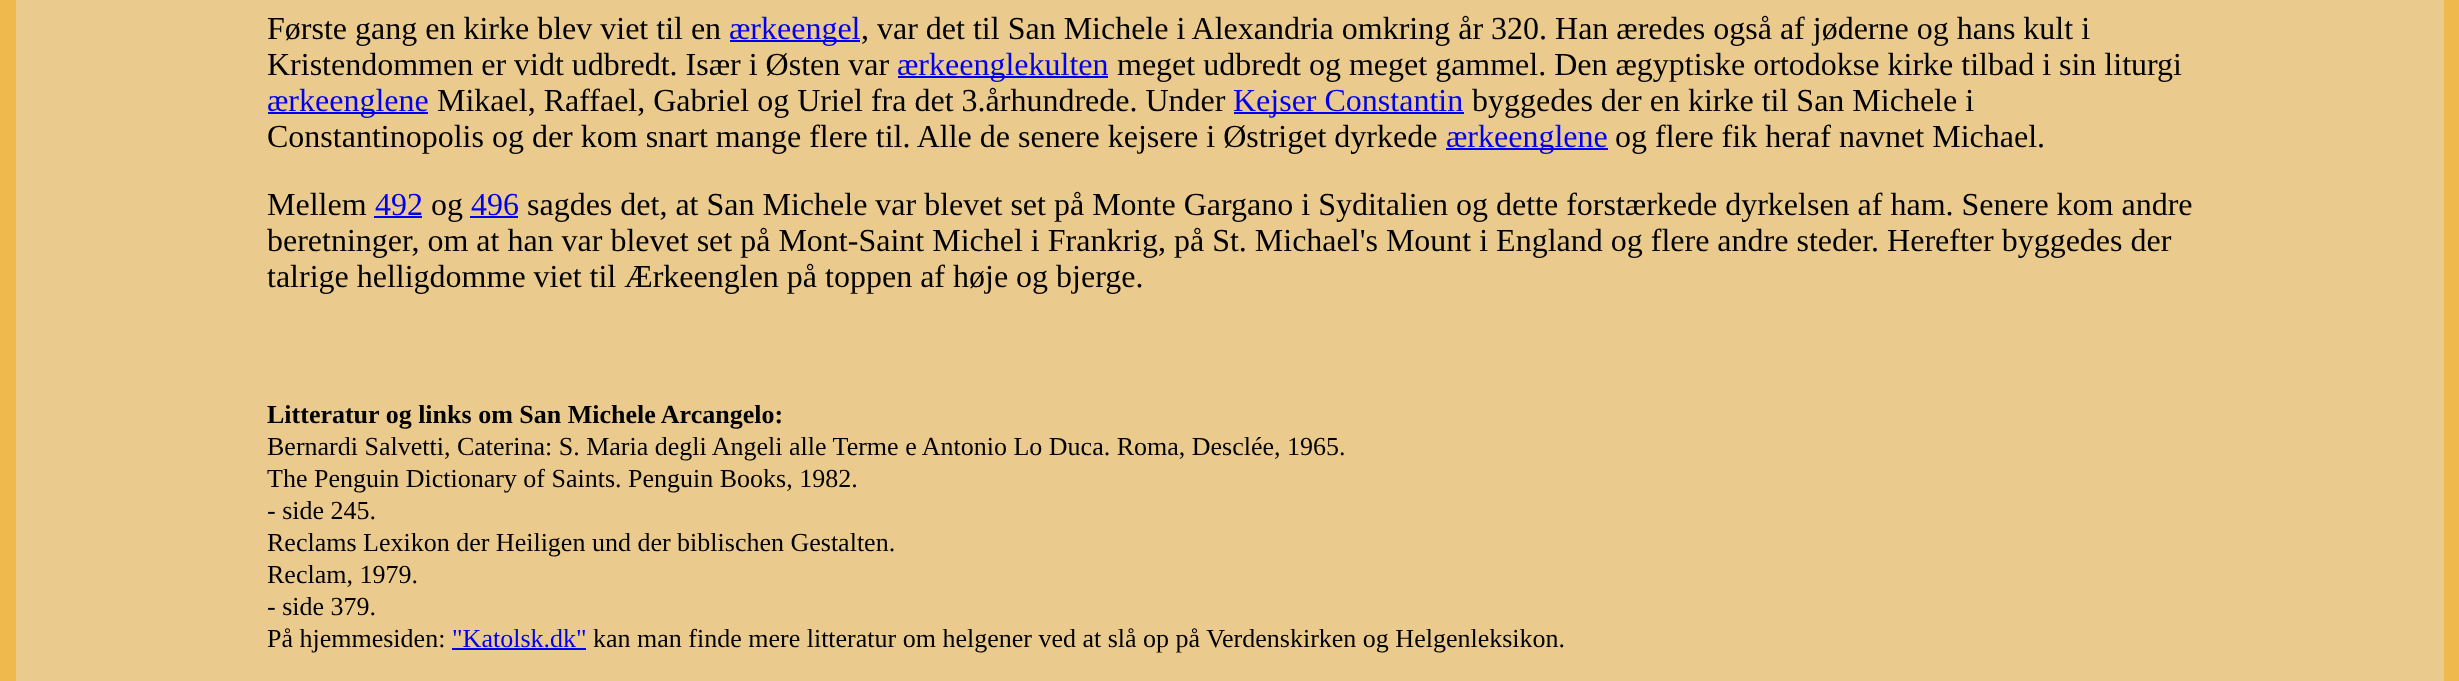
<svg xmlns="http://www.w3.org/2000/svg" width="2459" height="681">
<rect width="100%" height="100%" fill="#f0b94e"/>
<rect x="16" width="2428" height="681" fill="#ebcb8d"/>
<text x="267" y="39" style="font-family:Liberation Serif;font-size:32px;fill:#000">Første gang en kirke blev viet til en</text>
<rect x="730" y="40" width="130" height="2" fill="#00e"/>
<text x="729" y="39" style="font-family:Liberation Serif;font-size:32px;fill:#00e">ærkeengel</text>
<text x="861" y="39" style="font-family:Liberation Serif;font-size:32px;fill:#000">, var det til San Michele i Alexandria omkring år 320. Han æredes også af jøderne og hans kult i</text>
<text x="267" y="75" style="font-family:Liberation Serif;font-size:32px;fill:#000">Kristendommen er vidt udbredt. Især i Østen var</text>
<rect x="898" y="76" width="210" height="2" fill="#00e"/>
<text x="897" y="75" style="font-family:Liberation Serif;font-size:32px;fill:#00e">ærkeenglekulten</text>
<text x="1117" y="75" style="font-family:Liberation Serif;font-size:32px;fill:#000">meget udbredt og meget gammel. Den ægyptiske ortodokse kirke tilbad i sin liturgi</text>
<rect x="268" y="112" width="160" height="2" fill="#00e"/>
<text x="267" y="111" style="font-family:Liberation Serif;font-size:32px;fill:#00e">ærkeenglene</text>
<text x="437" y="111" style="font-family:Liberation Serif;font-size:32px;fill:#000">Mikael, Raffael, Gabriel og Uriel fra det 3.århundrede. Under</text>
<rect x="1234" y="112" width="230" height="2" fill="#00e"/>
<text x="1233" y="111" style="font-family:Liberation Serif;font-size:32px;fill:#00e">Kejser Constantin</text>
<text x="1472" y="111" style="font-family:Liberation Serif;font-size:32px;fill:#000">byggedes der en kirke til San Michele i</text>
<text x="267" y="147" style="font-family:Liberation Serif;font-size:32px;fill:#000">Constantinopolis og der kom snart mange flere til. Alle de senere kejsere i Østriget dyrkede</text>
<rect x="1446" y="148" width="162" height="2" fill="#00e"/>
<text x="1446" y="147" style="font-family:Liberation Serif;font-size:32px;fill:#00e">ærkeenglene</text>
<text x="1615" y="147" style="font-family:Liberation Serif;font-size:32px;fill:#000">og flere fik heraf navnet Michael.</text>
<text x="267" y="215" style="font-family:Liberation Serif;font-size:32px;fill:#000">Mellem</text>
<text x="375" y="215" style="font-family:Liberation Serif;font-size:32px;fill:#00e">492</text>
<rect x="374" y="216" width="48" height="2" fill="#00e"/>
<text x="431" y="215" style="font-family:Liberation Serif;font-size:32px;fill:#000">og</text>
<text x="471" y="215" style="font-family:Liberation Serif;font-size:32px;fill:#00e">496</text>
<rect x="470" y="216" width="48" height="2" fill="#00e"/>
<text x="527" y="215" style="font-family:Liberation Serif;font-size:32px;fill:#000">sagdes det, at San Michele var blevet set på Monte Gargano i Syditalien og dette forstærkede dyrkelsen af ham. Senere kom andre</text>
<text x="267" y="251" style="font-family:Liberation Serif;font-size:32px;fill:#000">beretninger, om at han var blevet set på Mont-Saint Michel i Frankrig, på St. Michael's Mount i England og flere andre steder. Herefter byggedes der</text>
<text x="267" y="287" style="font-family:Liberation Serif;font-size:32px;fill:#000">talrige helligdomme viet til Ærkeenglen på toppen af høje og bjerge.</text>
<text x="267" y="423" style="font-family:Liberation Serif;font-size:26px;font-weight:bold;fill:#000">Litteratur og links om San Michele Arcangelo:</text>
<text x="267" y="455" style="font-family:Liberation Serif;font-size:26px;fill:#000">Bernardi Salvetti, Caterina: S. Maria degli Angeli alle Terme e Antonio Lo Duca. Roma, Desclée, 1965.</text>
<text x="267" y="487" style="font-family:Liberation Serif;font-size:26px;fill:#000">The Penguin Dictionary of Saints. Penguin Books, 1982.</text>
<text x="267" y="519" style="font-family:Liberation Serif;font-size:26px;fill:#000">- side 245.</text>
<text x="267" y="551" style="font-family:Liberation Serif;font-size:26px;fill:#000">Reclams Lexikon der Heiligen und der biblischen Gestalten.</text>
<text x="267" y="583" style="font-family:Liberation Serif;font-size:26px;fill:#000">Reclam, 1979.</text>
<text x="267" y="615" style="font-family:Liberation Serif;font-size:26px;fill:#000">- side 379.</text>
<text x="267" y="647" style="font-family:Liberation Serif;font-size:26px;fill:#000">På hjemmesiden:</text>
<text x="452" y="647" style="font-family:Liberation Serif;font-size:26px;fill:#00e">"Katolsk.dk"</text>
<rect x="452" y="648" width="134" height="2" fill="#00e"/>
<text x="593" y="647" style="font-family:Liberation Serif;font-size:26px;fill:#000">kan man finde mere litteratur om helgener ved at slå op på Verdenskirken og Helgenleksikon.</text>
</svg>
